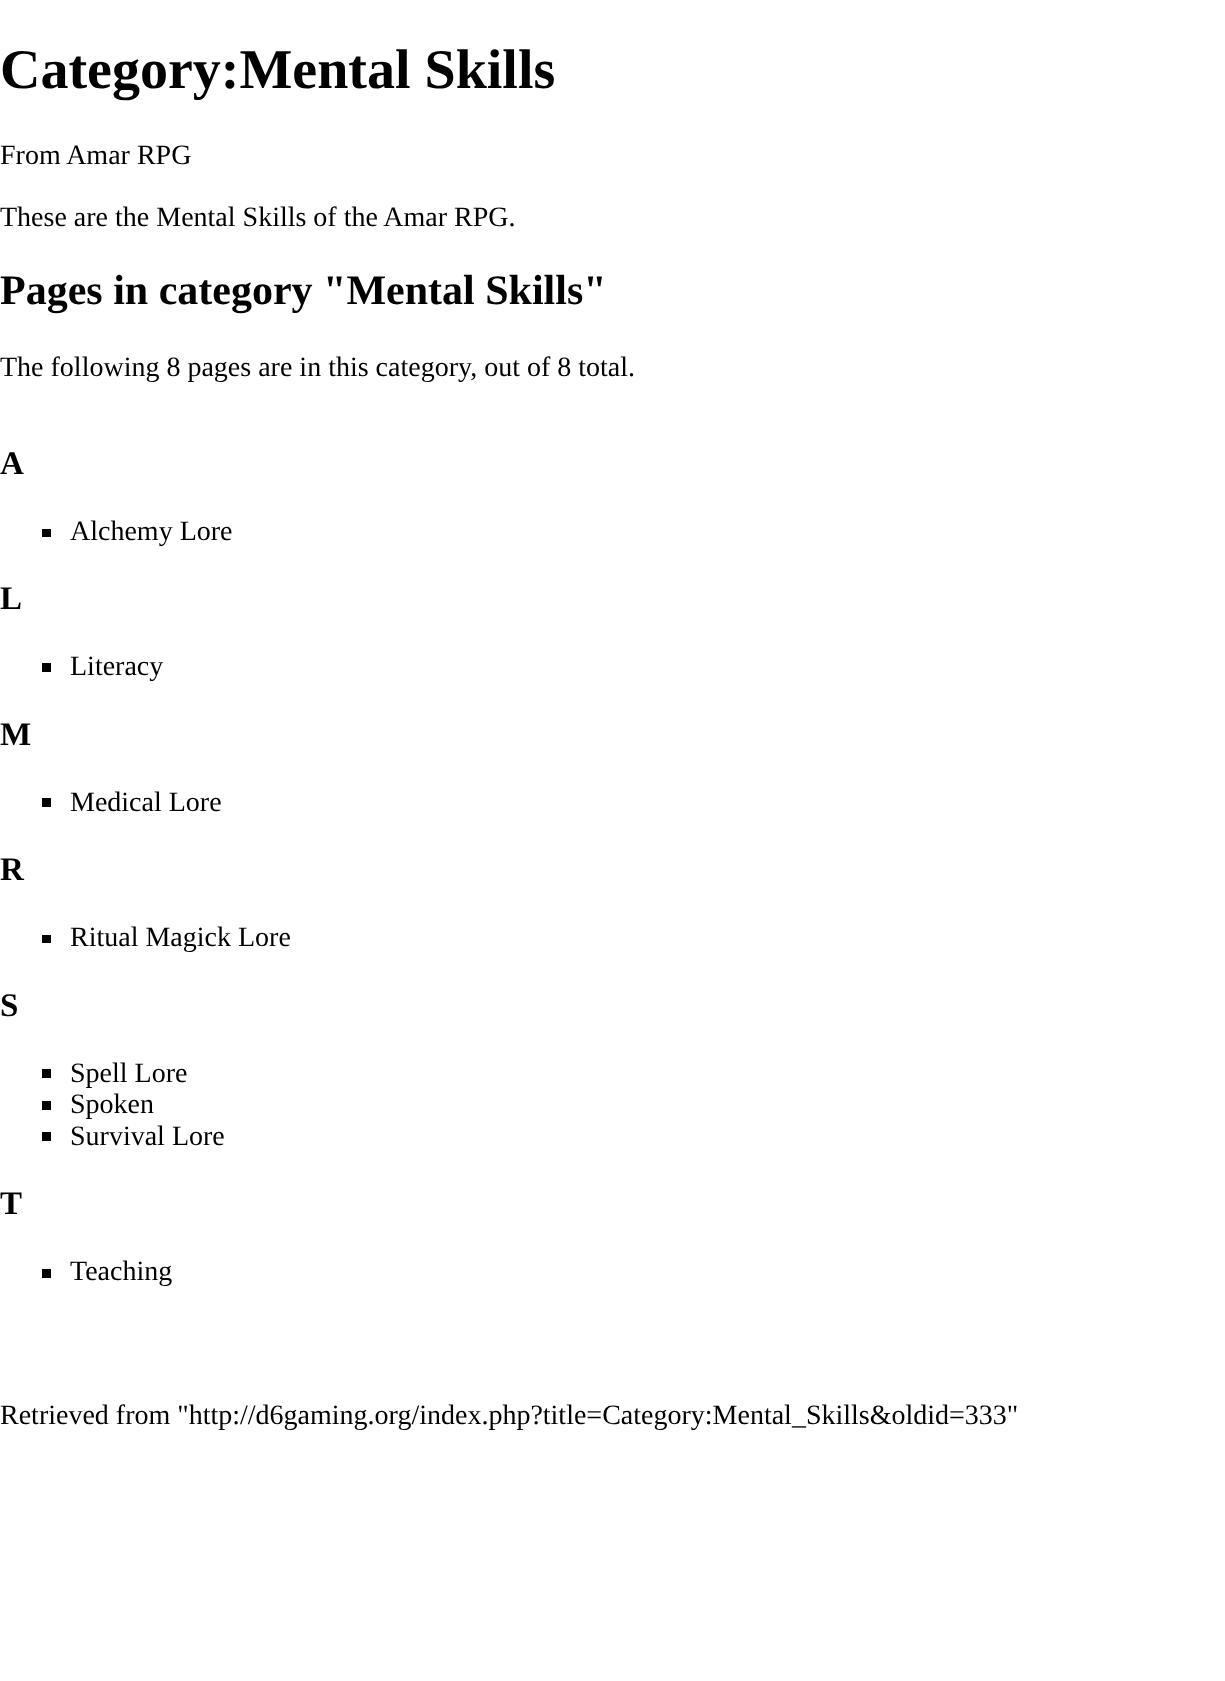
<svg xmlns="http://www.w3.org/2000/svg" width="1225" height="1681">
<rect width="100%" height="100%" fill="#fff"/>
<text x="0" y="88" style="font-family:Liberation Serif;font-size:56px;font-weight:bold;fill:#000">Category:Mental Skills</text>
<text x="0" y="164" style="font-family:Liberation Serif;font-size:28px;fill:#000">From Amar RPG</text>
<text x="0" y="226" style="font-family:Liberation Serif;font-size:28px;fill:#000">These are the Mental Skills of the Amar RPG.</text>
<text x="0" y="304" style="font-family:Liberation Serif;font-size:42px;font-weight:bold;fill:#000">Pages in category "Mental Skills"</text>
<text x="0" y="376" style="font-family:Liberation Serif;font-size:28px;fill:#000">The following 8 pages are in this category, out of 8 total.</text>
<text x="0" y="474" style="font-family:Liberation Serif;font-size:33px;font-weight:bold;fill:#000">A</text>
<rect x="42" y="529" width="9" height="8" fill="#000"/>
<text x="70" y="540" style="font-family:Liberation Serif;font-size:28px;fill:#000">Alchemy Lore</text>
<text x="0" y="609" style="font-family:Liberation Serif;font-size:33px;font-weight:bold;fill:#000">L</text>
<rect x="42" y="663" width="9" height="9" fill="#000"/>
<text x="70" y="675" style="font-family:Liberation Serif;font-size:28px;fill:#000">Literacy</text>
<text x="0" y="745" style="font-family:Liberation Serif;font-size:33px;font-weight:bold;fill:#000">M</text>
<rect x="42" y="798" width="9" height="9" fill="#000"/>
<text x="70" y="811" style="font-family:Liberation Serif;font-size:28px;fill:#000">Medical Lore</text>
<text x="0" y="880" style="font-family:Liberation Serif;font-size:33px;font-weight:bold;fill:#000">R</text>
<rect x="42" y="935" width="9" height="8" fill="#000"/>
<text x="70" y="946" style="font-family:Liberation Serif;font-size:28px;fill:#000">Ritual Magick Lore</text>
<text x="0" y="1016" style="font-family:Liberation Serif;font-size:33px;font-weight:bold;fill:#000">S</text>
<rect x="42" y="1069" width="9" height="9" fill="#000"/>
<text x="70" y="1082" style="font-family:Liberation Serif;font-size:28px;fill:#000">Spell Lore</text>
<rect x="42" y="1101" width="9" height="9" fill="#000"/>
<text x="70" y="1113" style="font-family:Liberation Serif;font-size:28px;fill:#000">Spoken</text>
<rect x="42" y="1132" width="9" height="9" fill="#000"/>
<text x="70" y="1145" style="font-family:Liberation Serif;font-size:28px;fill:#000">Survival Lore</text>
<text x="0" y="1214" style="font-family:Liberation Serif;font-size:33px;font-weight:bold;fill:#000">T</text>
<rect x="42" y="1269" width="9" height="9" fill="#000"/>
<text x="70" y="1280" style="font-family:Liberation Serif;font-size:28px;fill:#000">Teaching</text>
<text x="0" y="1424" style="font-family:Liberation Serif;font-size:28px;fill:#000">Retrieved from "http://d6gaming.org/index.php?title=Category:Mental_Skills&amp;oldid=333"</text>
</svg>
